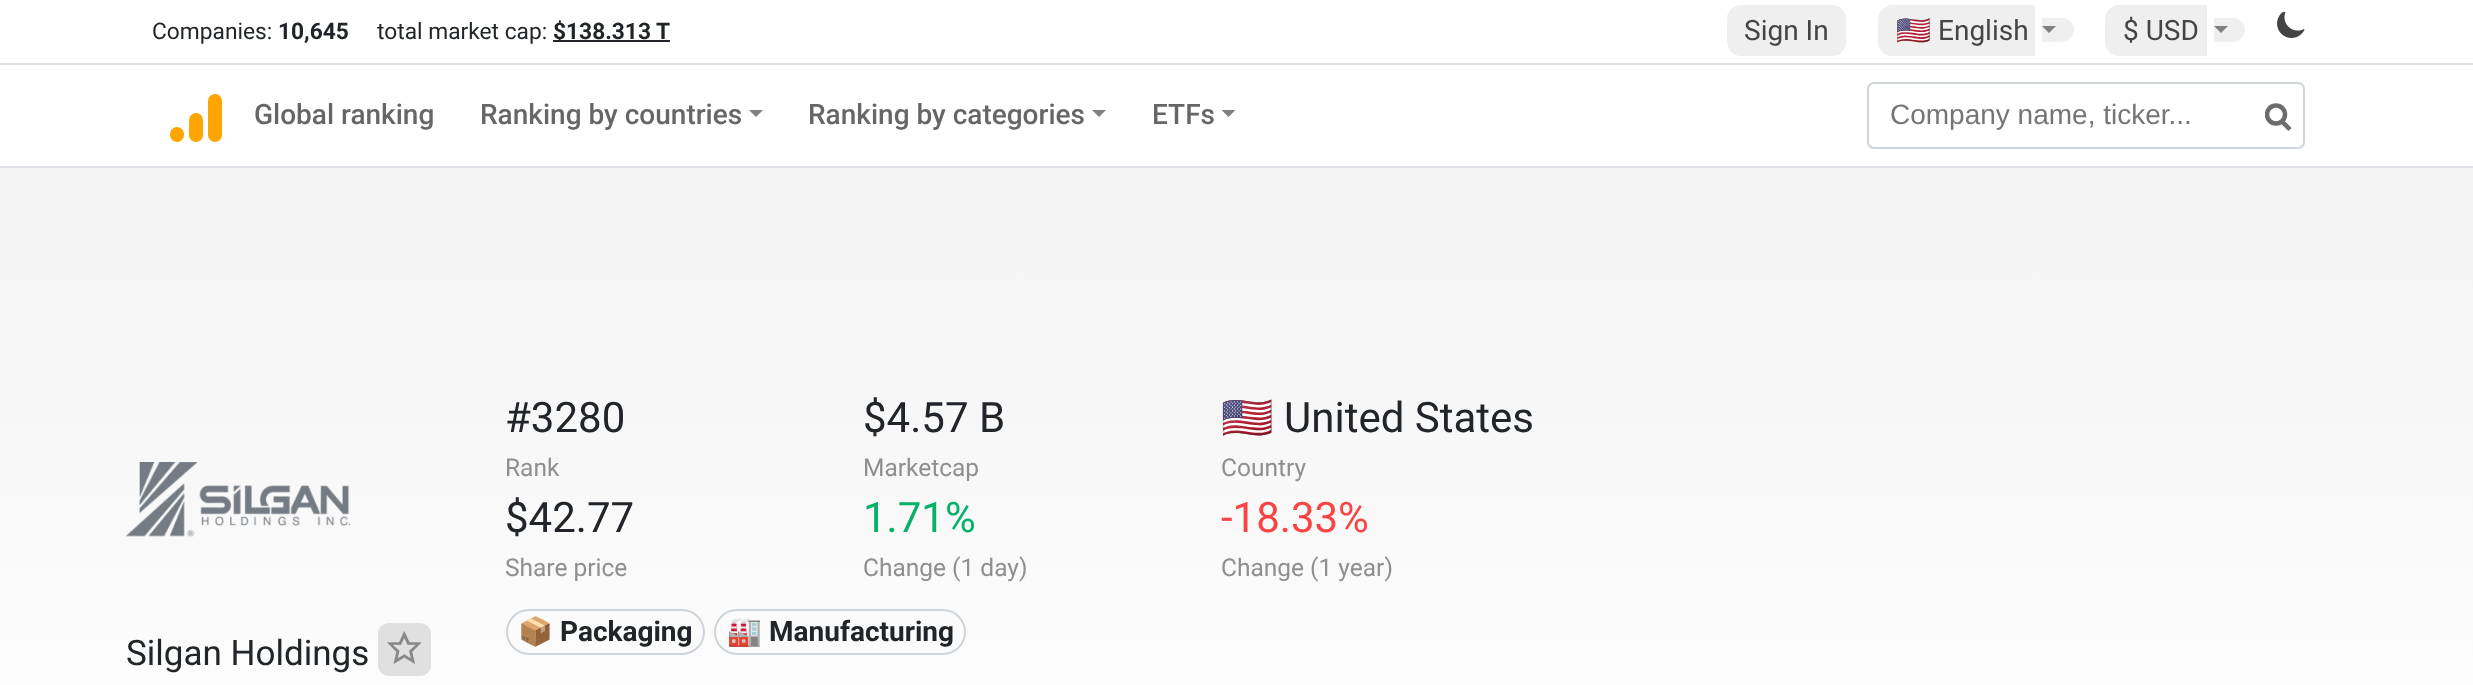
<svg xmlns="http://www.w3.org/2000/svg" width="2473" height="685">
<defs>
<linearGradient id="g1" gradientUnits="userSpaceOnUse" x1="1237" y1="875" x2="1237" y2="0"><stop offset="0" stop-color="#fff"/><stop offset="1" stop-color="#f0f0f0"/></linearGradient>
<clipPath id="clip1"><rect x="2265" y="103" width="31" height="32"/></clipPath>
</defs>
<rect width="100%" height="100%" fill="#fff"/>
<rect y="168" width="2473" height="517" fill="url(#g1)"/>
<text x="152" y="39" style="font-family:Roboto;font-size:22.75px;fill:#212529">Companies:</text>
<text x="278" y="39" style="font-family:Roboto;font-size:22.75px;font-weight:bold;fill:#212529">10,645</text>
<text x="377" y="39" style="font-family:Roboto;font-size:22.75px;fill:#212529">total market cap:</text>
<rect x="553" y="40" width="117" height="2" fill="#212529"/>
<text x="553" y="39" style="font-family:Roboto;font-size:22.75px;font-weight:bold;fill:#212529">$138.313 T</text>
<rect x="1727" y="5" width="119" height="51" rx="14" fill="#efefef"/>
<text x="1744" y="40" style="font-family:Roboto;font-size:28px;fill:#444">Sign In</text>
<path d="M1892 5h45v51h-45c-7.5 0-14-6.5-14-14v-23c0-7.5 6.5-14 14-14z" fill="#efefef"/>
<rect x="1937" y="5" width="98" height="51" fill="#efefef"/>
<path d="M2042 18h20c6.5 0 12 5.5 12 12c0 6.5-5.5 12-12 12h-20z" fill="#efefef"/>
<text x="1896" y="40" style="font-family:Noto Color Emoji;font-size:28px;fill:#444">🇺🇸</text>
<text x="1938" y="40" style="font-family:Roboto;font-size:28px;fill:#444">English</text>
<path d="M2042 26h14l-7 7z" fill="#808080"/>
<path d="M2119 5h88v51h-88c-7.5 0-14-6.5-14-14v-23c0-7.5 6.5-14 14-14z" fill="#efefef"/>
<path d="M2214 18h19c6.5 0 12 5.5 12 12c0 6.5-5.5 12-12 12h-19z" fill="#efefef"/>
<text x="2123" y="40" style="font-family:Roboto;font-size:28px;fill:#444">$ USD</text>
<path d="M2214 26h14l-7 7z" fill="#808080"/>
<image x="2277" y="12" width="28" height="26" href="media/1.png"/>
<rect y="63" width="2473" height="2" fill="#dee2e6"/>
<rect y="166" width="2473" height="2" fill="#dee2e6"/>
<rect x="170" y="127" width="14" height="15" rx="7" fill="#ffa500"/>
<rect x="189" y="113" width="14" height="29" rx="7" fill="#ffa500"/>
<rect x="208" y="94" width="14" height="48" rx="7" fill="#ffa500"/>
<text x="254" y="124" style="font-family:Roboto;font-size:28px;font-weight:500;fill:#666">Global ranking</text>
<text x="480" y="124" style="font-family:Roboto;font-size:28px;font-weight:500;fill:#666">Ranking by countries</text>
<path d="M749 110h14l-7 7z" fill="#808080"/>
<text x="808" y="124" style="font-family:Roboto;font-size:28px;font-weight:500;fill:#666">Ranking by categories</text>
<path d="M1092 110h14l-7 7z" fill="#808080"/>
<text x="1152" y="124" style="font-family:Roboto;font-size:28px;font-weight:500;fill:#666">ETFs</text>
<path d="M1221.5 110h14l-7 7z" fill="#808080"/>
<rect x="1868" y="83" width="436" height="65" rx="6" fill="none" stroke="#ced4da" stroke-width="2"/>
<text x="1890" y="124" style="font-family:Liberation Sans;font-size:28px;fill:#757575">Company name, ticker...</text>
<path d="M2290 129.5l-9-9" fill="none" stroke="#6c6c6c" stroke-width="4.5"/>
<g clip-path="url(#clip1)">
<circle cx="2276" cy="114.5" r="9" fill="none" stroke="#6c6c6c" stroke-width="4.5"/>
</g>
<text x="505" y="432" style="font-family:Roboto;font-size:42px;fill:#212529">#3280</text>
<text x="505" y="476" style="font-family:Roboto;font-size:24.5px;fill:#8f8f8f">Rank</text>
<text x="863" y="432" style="font-family:Roboto;font-size:42px;fill:#212529">$4.57 B</text>
<text x="863" y="476" style="font-family:Roboto;font-size:24.5px;fill:#8f8f8f">Marketcap</text>
<text x="1221" y="432" style="font-family:Noto Color Emoji;font-size:42px;fill:#212529">🇺🇸</text>
<text x="1284" y="432" style="font-family:Roboto;font-size:42px;fill:#212529">United States</text>
<text x="1221" y="476" style="font-family:Roboto;font-size:24.5px;fill:#8f8f8f">Country</text>
<text x="505" y="532" style="font-family:Roboto;font-size:42px;fill:#212529">$42.77</text>
<text x="505" y="576" style="font-family:Roboto;font-size:24.5px;fill:#8f8f8f">Share price</text>
<text x="863" y="532" style="font-family:Roboto;font-size:42px;fill:#05b169">1.71%</text>
<text x="863" y="576" style="font-family:Roboto;font-size:24.5px;fill:#8f8f8f">Change (1 day)</text>
<text x="1221" y="532" style="font-family:Roboto;font-size:42px;fill:#fa4444">-18.33%</text>
<text x="1221" y="576" style="font-family:Roboto;font-size:24.5px;fill:#8f8f8f">Change (1 year)</text>
<rect x="507" y="610" width="197" height="44" rx="22" fill="none" stroke="#ced4da" stroke-width="2"/>
<text x="518" y="641" style="font-family:Noto Color Emoji;font-size:28px;font-weight:bold;fill:#212529">📦</text>
<text x="560" y="641" style="font-family:Roboto;font-size:28px;font-weight:bold;fill:#212529">Packaging</text>
<rect x="715" y="610" width="250" height="44" rx="22" fill="none" stroke="#ced4da" stroke-width="2"/>
<text x="727" y="641" style="font-family:Noto Color Emoji;font-size:28px;font-weight:bold;fill:#212529">🏭</text>
<text x="769" y="641" style="font-family:Roboto;font-size:28px;font-weight:bold;fill:#212529">Manufacturing</text>
<image x="126" y="462" width="224" height="75" href="media/2.png"/>
<text x="126" y="665" style="font-family:Roboto;font-size:35px;fill:#212529">Silgan Holdings</text>
<rect x="378" y="623" width="53" height="53" rx="11" fill="#e0e0e0"/>
<image x="387" y="631" width="35" height="33" href="media/3.png"/>
</svg>
